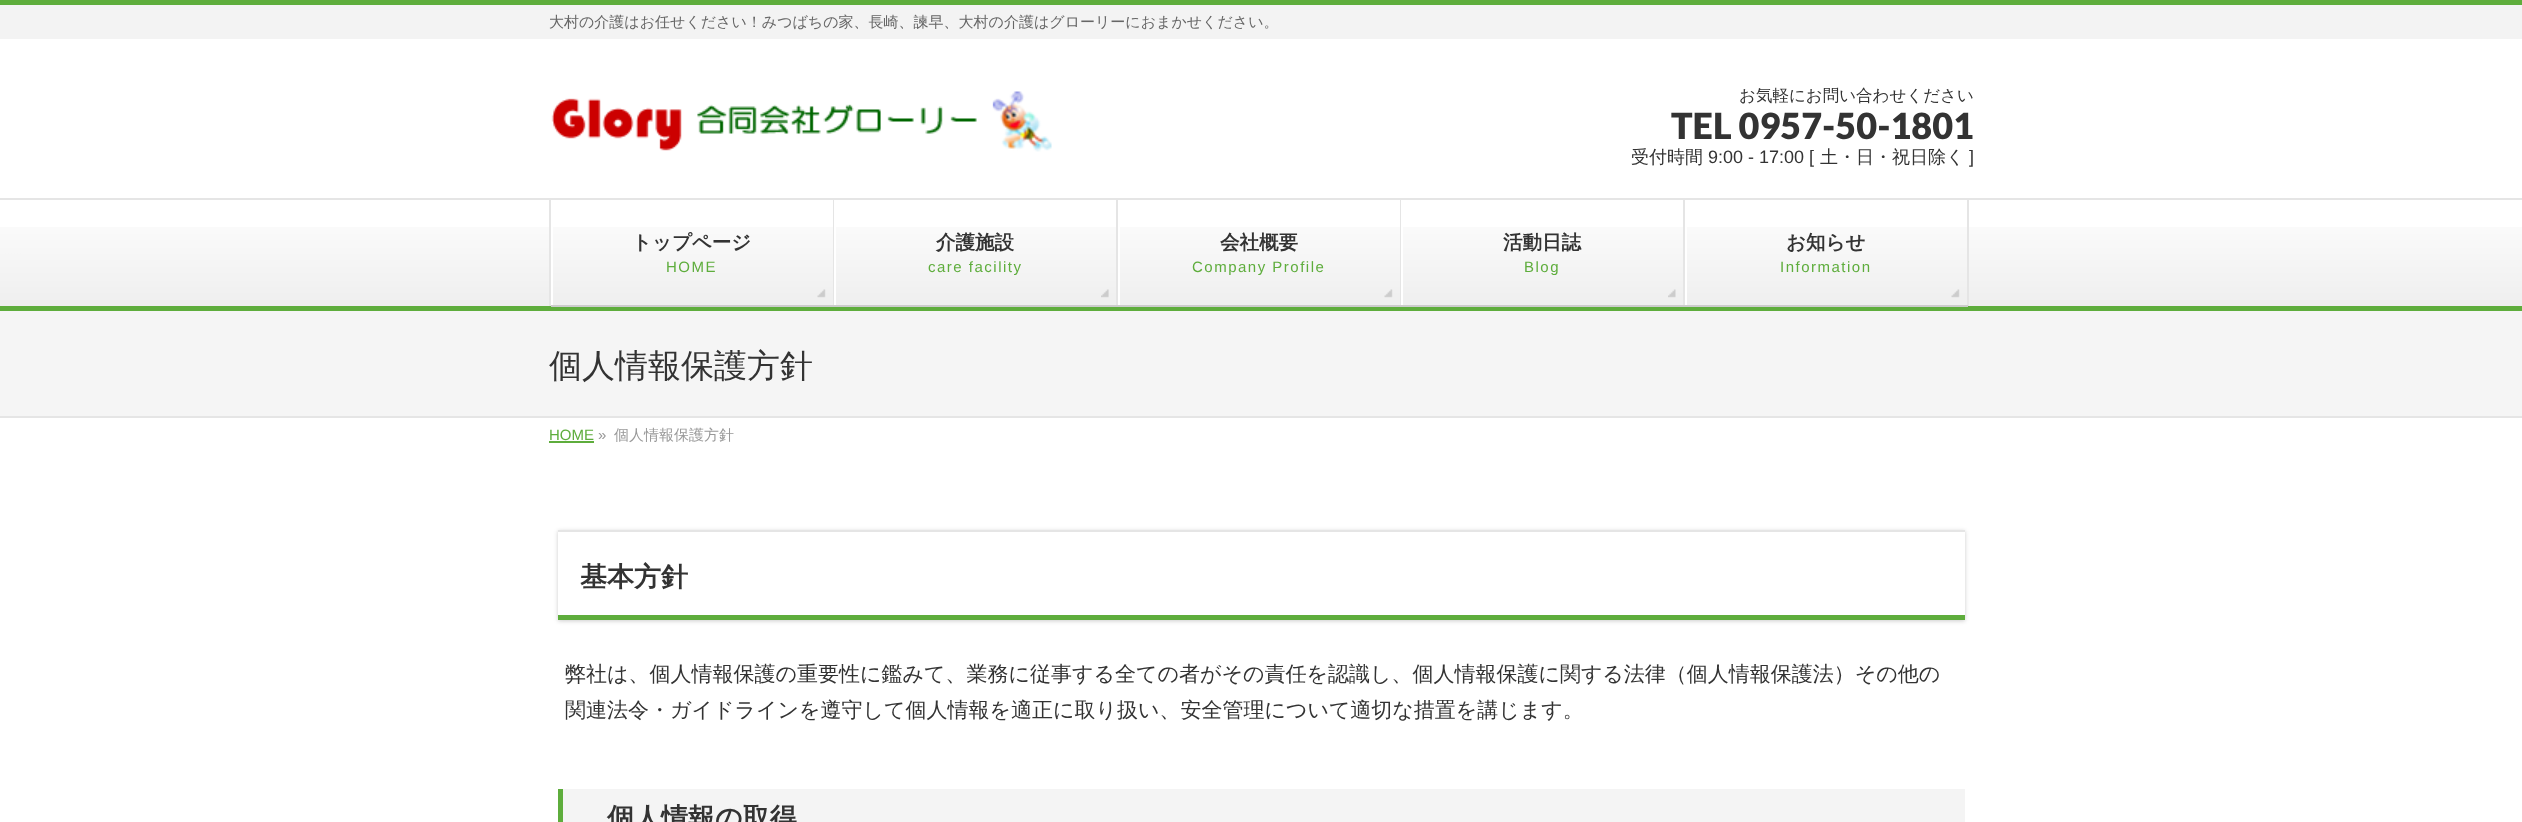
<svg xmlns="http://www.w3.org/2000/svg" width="2522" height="822">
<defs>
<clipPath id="clip1"><path d="M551 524h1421v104h-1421zm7 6h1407v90h-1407z" clip-rule="evenodd"/></clipPath>
</defs>
<rect width="100%" height="100%" fill="#fff"/>
<rect y="5" width="2522" height="34" fill="#f3f3f3"/>
<rect width="2522" height="5" fill="#5ead3c"/>
<text x="549" y="27" style="font-family:WenQuanYi Zen Hei;font-size:15px;font-weight:500;fill:#666">大村の介護はお任せください！みつばちの家、長崎、諫早、大村の介護はグローリーにおまかせください。</text>
<image x="551" y="91" width="501" height="61" href="media/1.png"/>
<text x="1739" y="101" style="font-family:WenQuanYi Zen Hei;font-size:16.5px;font-weight:500;fill:#333">お気軽にお問い合わせください</text>
<text x="1671" y="139" style="font-family:Lato;font-size:36px;font-weight:900;fill:#333">TEL 0957-50-1801</text>
<text x="1631" y="163" style="font-family:WenQuanYi Zen Hei;font-size:18px;font-weight:500;fill:#333">受付時間</text>
<text x="1708" y="163" style="font-family:Liberation Sans;font-size:18px;fill:#333">9:00 - 17:00 [</text>
<text x="1820" y="163" style="font-family:WenQuanYi Zen Hei;font-size:18px;font-weight:500;fill:#333">土・日・祝日除く</text>
<text x="1969" y="163" style="font-family:Liberation Sans;font-size:18px;fill:#333">]</text>
<image x="0" y="227" width="2522" height="79" href="media/2.png"/>
<rect y="198" width="2522" height="2" fill="#e5e5e5"/>
<rect y="306" width="2522" height="5" fill="#5ead3c"/>
<rect x="549" y="200" width="2" height="106" fill="#e5e5e5"/>
<rect x="551" y="227" width="2" height="79" fill="#fff"/>
<image x="817" y="289" width="9" height="9" href="media/3.png"/>
<rect x="833" y="200" width="1" height="106" fill="#e5e5e5"/>
<rect x="551" y="305" width="283" height="2" fill="#ccc"/>
<text x="632" y="249" style="font-family:WenQuanYi Zen Hei;font-size:19.5px;font-weight:bold;fill:#333">トップページ</text>
<text x="666" y="272" style="font-family:Liberation Sans;font-size:15px;letter-spacing:1.5px;fill:#5ead3c">HOME</text>
<rect x="834" y="227" width="2" height="79" fill="#fff"/>
<image x="1101" y="289" width="8" height="9" href="media/4.png"/>
<rect x="1116" y="200" width="2" height="106" fill="#e5e5e5"/>
<rect x="834" y="305" width="284" height="2" fill="#ccc"/>
<text x="936" y="249" style="font-family:WenQuanYi Zen Hei;font-size:19.5px;font-weight:bold;fill:#333">介護施設</text>
<text x="928" y="272" style="font-family:Liberation Sans;font-size:15px;letter-spacing:1.5px;fill:#5ead3c">care facility</text>
<rect x="1118" y="227" width="2" height="79" fill="#fff"/>
<image x="1384" y="289" width="9" height="9" href="media/5.png"/>
<rect x="1400" y="200" width="1" height="106" fill="#e5e5e5"/>
<rect x="1118" y="305" width="283" height="2" fill="#ccc"/>
<text x="1220" y="249" style="font-family:WenQuanYi Zen Hei;font-size:19.5px;font-weight:bold;fill:#333">会社概要</text>
<text x="1192" y="272" style="font-family:Liberation Sans;font-size:15px;letter-spacing:1.5px;fill:#5ead3c">Company Profile</text>
<rect x="1401" y="227" width="2" height="79" fill="#fff"/>
<image x="1668" y="289" width="8" height="9" href="media/6.png"/>
<rect x="1683" y="200" width="2" height="106" fill="#e5e5e5"/>
<rect x="1401" y="305" width="284" height="2" fill="#ccc"/>
<text x="1503" y="249" style="font-family:WenQuanYi Zen Hei;font-size:19.5px;font-weight:bold;fill:#333">活動日誌</text>
<text x="1524" y="272" style="font-family:Liberation Sans;font-size:15px;letter-spacing:1.5px;fill:#5ead3c">Blog</text>
<rect x="1685" y="227" width="2" height="79" fill="#fff"/>
<image x="1951" y="289" width="9" height="9" href="media/5.png"/>
<rect x="1967" y="200" width="2" height="106" fill="#e5e5e5"/>
<rect x="1685" y="305" width="283" height="2" fill="#ccc"/>
<text x="1786" y="249" style="font-family:WenQuanYi Zen Hei;font-size:19.5px;font-weight:bold;fill:#333">お知らせ</text>
<text x="1780" y="272" style="font-family:Liberation Sans;font-size:15px;letter-spacing:1.5px;fill:#5ead3c">Information</text>
<rect y="311" width="2522" height="105" fill="#f5f5f5"/>
<rect y="416" width="2522" height="2" fill="#e5e5e5"/>
<text x="549" y="377" style="font-family:WenQuanYi Zen Hei;font-size:33px;font-weight:500;fill:#333">個人情報保護方針</text>
<text x="549" y="440" style="font-family:Liberation Sans;font-size:15px;fill:#5ead3c">HOME</text>
<rect x="549" y="441" width="45" height="2" fill="#5ead3c"/>
<text x="598" y="440" style="font-family:Liberation Sans;font-size:15px;fill:#999">»</text>
<text x="614" y="440" style="font-family:WenQuanYi Zen Hei;font-size:15px;font-weight:500;fill:#999">個人情報保護方針</text>
<g clip-path="url(#clip1)">
<rect x="558" y="531" width="1407" height="90" fill="#00000033" filter="blur(2px)"/>
</g>
<rect x="558" y="530" width="1407" height="2" fill="#e5e5e5"/>
<rect x="558" y="615" width="1407" height="5" fill="#5ead3c"/>
<text x="580" y="586" style="font-family:WenQuanYi Zen Hei;font-size:27px;font-weight:bold;fill:#333">基本方針</text>
<text x="565" y="681" style="font-family:WenQuanYi Zen Hei;font-size:21px;font-weight:500;fill:#333">弊社は、個人情報保護の重要性に鑑みて、業務に従事する全ての者がその責任を認識し、個人情報保護に関する法律（個人情報保護法）その他の</text>
<text x="565" y="717" style="font-family:WenQuanYi Zen Hei;font-size:21px;font-weight:500;fill:#333">関連法令・ガイドラインを遵守して個人情報を適正に取り扱い、安全管理について適切な措置を講じます。</text>
<rect x="563" y="789" width="1402" height="33" fill="#f4f4f4"/>
<rect x="558" y="789" width="5" height="33" fill="#5ead3c"/>
<text x="607" y="827" style="font-family:WenQuanYi Zen Hei;font-size:27px;font-weight:bold;fill:#333">個人情報の取得</text>
</svg>
